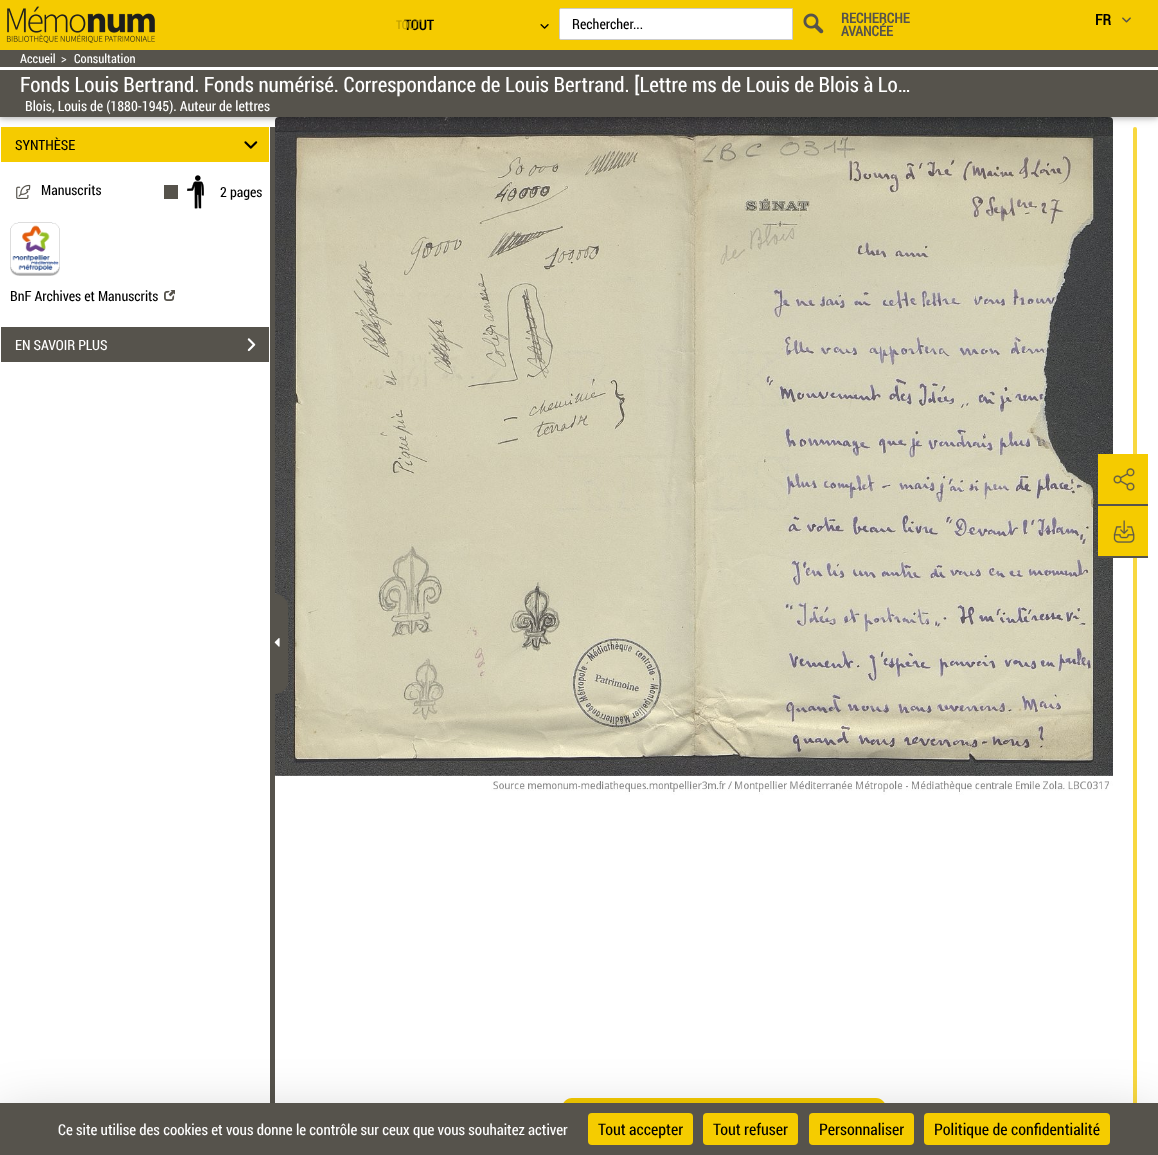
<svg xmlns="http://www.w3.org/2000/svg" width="1158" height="1155">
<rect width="100%" height="100%" fill="#fff"/>
<image x="275" y="117" width="838" height="678" href="media/12.png"/>
<rect x="1133" y="127" width="4" height="1008" rx="2" fill="#f8d840"/>
<rect y="52" width="1158" height="67" fill="#0000001f" filter="blur(5px)"/>
<rect y="52" width="1158" height="67" fill="#00000029" filter="blur(2px)"/>
<rect width="1158" height="50" fill="#f5cb00"/>
<image x="6" y="6" width="149" height="37" href="media/1.png"/>
<text x="404" y="30" style="font-family:Roboto Condensed;font-size:14px;font-weight:bold;fill:#000">TOUT</text>
<image x="540" y="24" width="9" height="5" href="media/2.png"/>
<text x="396" y="29" style="font-family:Roboto Condensed;font-size:12px;fill:#bd9d00">TOUT</text>
<path d="M561 8.5h231.5v31h-231.5c-1 0-1.5-.5-1.5-1.5v-28c0-1 .5-1.5 1.5-1.5z" fill="#fff" stroke="#ccc"/>
<text x="572" y="29" style="font-family:Roboto Condensed;font-size:14px;fill:#000">Rechercher...</text>
<image x="803" y="13" width="21" height="21" href="media/3.png"/>
<text x="841" y="23" style="font-family:Roboto Condensed;font-size:14px;font-weight:bold;fill:#56534c">RECHERCHE</text>
<text x="841" y="36" style="font-family:Roboto Condensed;font-size:14px;font-weight:bold;fill:#56534c">AVANCÉE</text>
<text x="1095" y="25" style="font-family:Roboto Condensed;font-size:15px;font-weight:bold;fill:#000">FR</text>
<image x="1122" y="17" width="9" height="6" href="media/4.png"/>
<rect y="50" width="1158" height="67" fill="#56534c"/>
<rect y="67" width="1158" height="3" fill="#fff"/>
<text x="20" y="63" style="font-family:Roboto Condensed;font-size:12.5px;fill:#fff">Accueil</text>
<text x="61" y="63" style="font-family:Roboto Condensed;font-size:12.5px;fill:#fff">&gt;</text>
<text x="74" y="63" style="font-family:Roboto Condensed;font-size:12.5px;fill:#fff">Consultation</text>
<text x="20" y="92" style="font-family:Roboto Condensed;font-size:21px;fill:#fff">Fonds Louis Bertrand. Fonds numérisé. Correspondance de Louis Bertrand. [Lettre ms de Louis de Blois à Lo…</text>
<text x="25" y="111" style="font-family:Roboto Condensed;font-size:14px;fill:#fff">Blois, Louis de (1880-1945). Auteur de lettres</text>
<rect x="270" y="127" width="5" height="976" fill="#56534c"/>
<rect x="1" y="127" width="268" height="35" fill="#f5cb00"/>
<text x="15" y="150" style="font-family:Roboto Condensed;font-size:14px;fill:#000">SYNTHÈSE</text>
<image x="244" y="141" width="14" height="8" href="media/5.png"/>
<image x="16" y="184" width="15" height="15" href="media/6.png"/>
<text x="41" y="195" style="font-family:Roboto Condensed;font-size:14px;fill:#000">Manuscrits</text>
<rect x="164" y="185" width="14" height="14" fill="#56534c"/>
<image x="187" y="175" width="17" height="34" href="media/7.png"/>
<text x="220" y="197" style="font-family:Roboto Condensed;font-size:14px;fill:#000">2 pages</text>
<image x="10" y="222" width="50" height="54" href="media/8.png"/>
<text x="10" y="301" style="font-family:Roboto Condensed;font-size:14px;fill:#000">BnF Archives et Manuscrits</text>
<image x="164" y="290" width="11" height="11" href="media/9.png"/>
<rect x="1" y="327" width="268" height="35" fill="#56534c"/>
<text x="15" y="350" style="font-family:Roboto Condensed;font-size:14px;fill:#fff">EN SAVOIR PLUS</text>
<image x="247" y="338" width="9" height="14" href="media/10.png"/>
<path d="M275.5 594.5h-.5c7 0 12.5 5.5 12.5 12.5v74c0 7-5.5 12.5-12.5 12.5h.5z" fill="#56534c" stroke="#56534c"/>
<image x="274" y="638" width="6" height="9" href="media/11.png"/>
<rect x="1098" y="454" width="50" height="50" fill="#f5cb00"/>
<image x="1113" y="468" width="22" height="23" href="media/13.png"/>
<rect x="1098" y="504" width="50" height="2" fill="#56534c"/>
<rect x="1098" y="506" width="50" height="50" fill="#f5cb00"/>
<image x="1113" y="520" width="22" height="23" href="media/14.png"/>
<rect x="1098" y="556" width="50" height="2" fill="#56534c"/>
<path d="M572 1098h304c5.5 0 10 4.5 10 10v47h-324v-47c0-5.5 4.5-10 10-10z" fill="#f5cb00"/>
<rect y="1123" width="1158" height="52" fill="#00000040" filter="blur(30px)"/>
<rect y="1103" width="1158" height="52" fill="#56534c"/>
<text x="58" y="1135" style="font-family:Roboto Condensed;font-size:15px;fill:#fff">Ce site utilise des cookies et vous donne le contrôle sur ceux que vous souhaitez activer</text>
<rect x="588" y="1113" width="105" height="32" rx="4" fill="#f5cc00"/>
<text x="598" y="1135" style="font-family:Roboto Condensed;font-size:16px;fill:#000">Tout accepter</text>
<rect x="703" y="1113" width="95" height="32" rx="4" fill="#f5cc00"/>
<text x="713" y="1135" style="font-family:Roboto Condensed;font-size:16px;fill:#000">Tout refuser</text>
<rect x="809" y="1113" width="105" height="32" rx="4" fill="#f5cc00"/>
<text x="819" y="1135" style="font-family:Roboto Condensed;font-size:16px;fill:#000">Personnaliser</text>
<rect x="924" y="1113" width="186" height="32" rx="4" fill="#f5cc00"/>
<text x="934" y="1135" style="font-family:Roboto Condensed;font-size:16px;fill:#000">Politique de confidentialité</text>
</svg>
